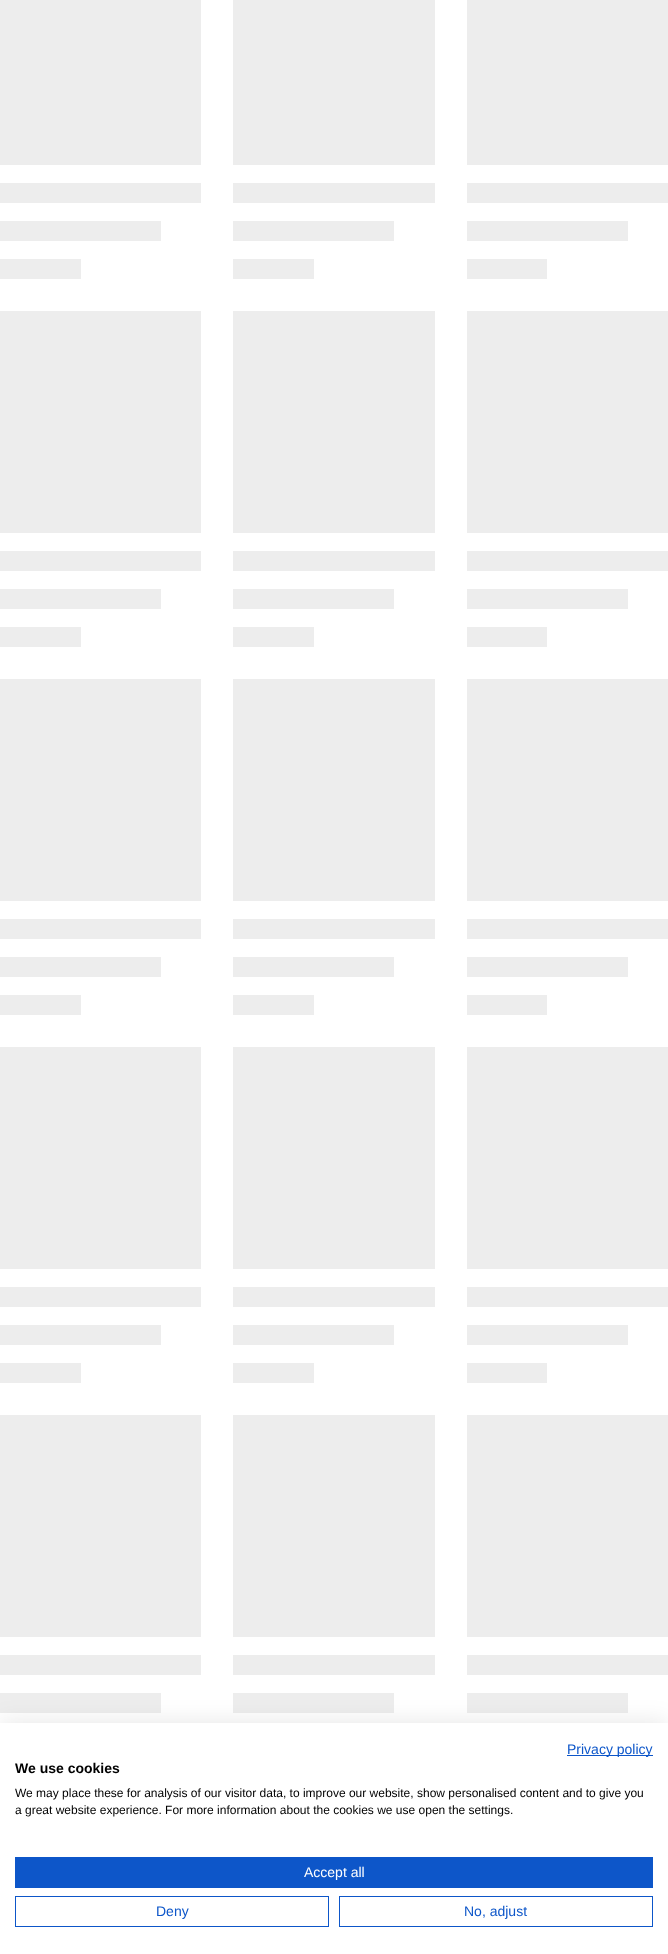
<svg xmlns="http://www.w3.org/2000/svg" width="668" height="1954">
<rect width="100%" height="100%" fill="#fff"/>
<rect width="201" height="165" fill="#ededed"/>
<rect y="183" width="201" height="20" fill="#ededed"/>
<rect y="221" width="161" height="20" fill="#ededed"/>
<rect y="259" width="81" height="20" fill="#ededed"/>
<rect x="233" width="202" height="165" fill="#ededed"/>
<rect x="233" y="183" width="202" height="20" fill="#ededed"/>
<rect x="233" y="221" width="161" height="20" fill="#ededed"/>
<rect x="233" y="259" width="81" height="20" fill="#ededed"/>
<rect x="467" width="201" height="165" fill="#ededed"/>
<rect x="467" y="183" width="201" height="20" fill="#ededed"/>
<rect x="467" y="221" width="161" height="20" fill="#ededed"/>
<rect x="467" y="259" width="80" height="20" fill="#ededed"/>
<rect y="311" width="201" height="222" fill="#ededed"/>
<rect y="551" width="201" height="20" fill="#ededed"/>
<rect y="589" width="161" height="20" fill="#ededed"/>
<rect y="627" width="81" height="20" fill="#ededed"/>
<rect x="233" y="311" width="202" height="222" fill="#ededed"/>
<rect x="233" y="551" width="202" height="20" fill="#ededed"/>
<rect x="233" y="589" width="161" height="20" fill="#ededed"/>
<rect x="233" y="627" width="81" height="20" fill="#ededed"/>
<rect x="467" y="311" width="201" height="222" fill="#ededed"/>
<rect x="467" y="551" width="201" height="20" fill="#ededed"/>
<rect x="467" y="589" width="161" height="20" fill="#ededed"/>
<rect x="467" y="627" width="80" height="20" fill="#ededed"/>
<rect y="679" width="201" height="222" fill="#ededed"/>
<rect y="919" width="201" height="20" fill="#ededed"/>
<rect y="957" width="161" height="20" fill="#ededed"/>
<rect y="995" width="81" height="20" fill="#ededed"/>
<rect x="233" y="679" width="202" height="222" fill="#ededed"/>
<rect x="233" y="919" width="202" height="20" fill="#ededed"/>
<rect x="233" y="957" width="161" height="20" fill="#ededed"/>
<rect x="233" y="995" width="81" height="20" fill="#ededed"/>
<rect x="467" y="679" width="201" height="222" fill="#ededed"/>
<rect x="467" y="919" width="201" height="20" fill="#ededed"/>
<rect x="467" y="957" width="161" height="20" fill="#ededed"/>
<rect x="467" y="995" width="80" height="20" fill="#ededed"/>
<rect y="1047" width="201" height="222" fill="#ededed"/>
<rect y="1287" width="201" height="20" fill="#ededed"/>
<rect y="1325" width="161" height="20" fill="#ededed"/>
<rect y="1363" width="81" height="20" fill="#ededed"/>
<rect x="233" y="1047" width="202" height="222" fill="#ededed"/>
<rect x="233" y="1287" width="202" height="20" fill="#ededed"/>
<rect x="233" y="1325" width="161" height="20" fill="#ededed"/>
<rect x="233" y="1363" width="81" height="20" fill="#ededed"/>
<rect x="467" y="1047" width="201" height="222" fill="#ededed"/>
<rect x="467" y="1287" width="201" height="20" fill="#ededed"/>
<rect x="467" y="1325" width="161" height="20" fill="#ededed"/>
<rect x="467" y="1363" width="80" height="20" fill="#ededed"/>
<rect y="1415" width="201" height="222" fill="#ededed"/>
<rect y="1655" width="201" height="20" fill="#ededed"/>
<rect y="1693" width="161" height="20" fill="#ededed"/>
<rect x="233" y="1415" width="202" height="222" fill="#ededed"/>
<rect x="233" y="1655" width="202" height="20" fill="#ededed"/>
<rect x="233" y="1693" width="161" height="20" fill="#ededed"/>
<rect x="467" y="1415" width="201" height="222" fill="#ededed"/>
<rect x="467" y="1655" width="201" height="20" fill="#ededed"/>
<rect x="467" y="1693" width="161" height="20" fill="#ededed"/>
<rect y="1723" width="668" height="231" fill="#0000001a" filter="blur(12px)"/>
<rect y="1723" width="668" height="231" fill="#fff"/>
<rect x="567" y="1755" width="86" height="1" fill="#0d56c9"/>
<text x="567" y="1754" style="font-family:Liberation Sans;font-size:14px;fill:#0d56c9">Privacy policy</text>
<text x="15" y="1773" style="font-family:Liberation Sans;font-size:14px;font-weight:bold;fill:#000">We use cookies</text>
<text x="15" y="1797" style="font-family:Liberation Sans;font-size:12px;fill:#000">We may place these for analysis of our visitor data, to improve our website, show personalised content and to give you</text>
<text x="15" y="1814" style="font-family:Liberation Sans;font-size:12px;fill:#000">a great website experience. For more information about the cookies we use open the settings.</text>
<rect x="15" y="1857" width="638" height="31" fill="#0d56c9"/>
<text x="304" y="1877" style="font-family:Liberation Sans;font-size:14px;fill:#fff">Accept all</text>
<rect x="15.5" y="1896.5" width="313" height="30" fill="none" stroke="#0d56c9"/>
<text x="156" y="1916" style="font-family:Liberation Sans;font-size:14px;fill:#0d56c9">Deny</text>
<rect x="339.5" y="1896.5" width="313" height="30" fill="none" stroke="#0d56c9"/>
<text x="464" y="1916" style="font-family:Liberation Sans;font-size:14px;fill:#0d56c9">No, adjust</text>
</svg>
